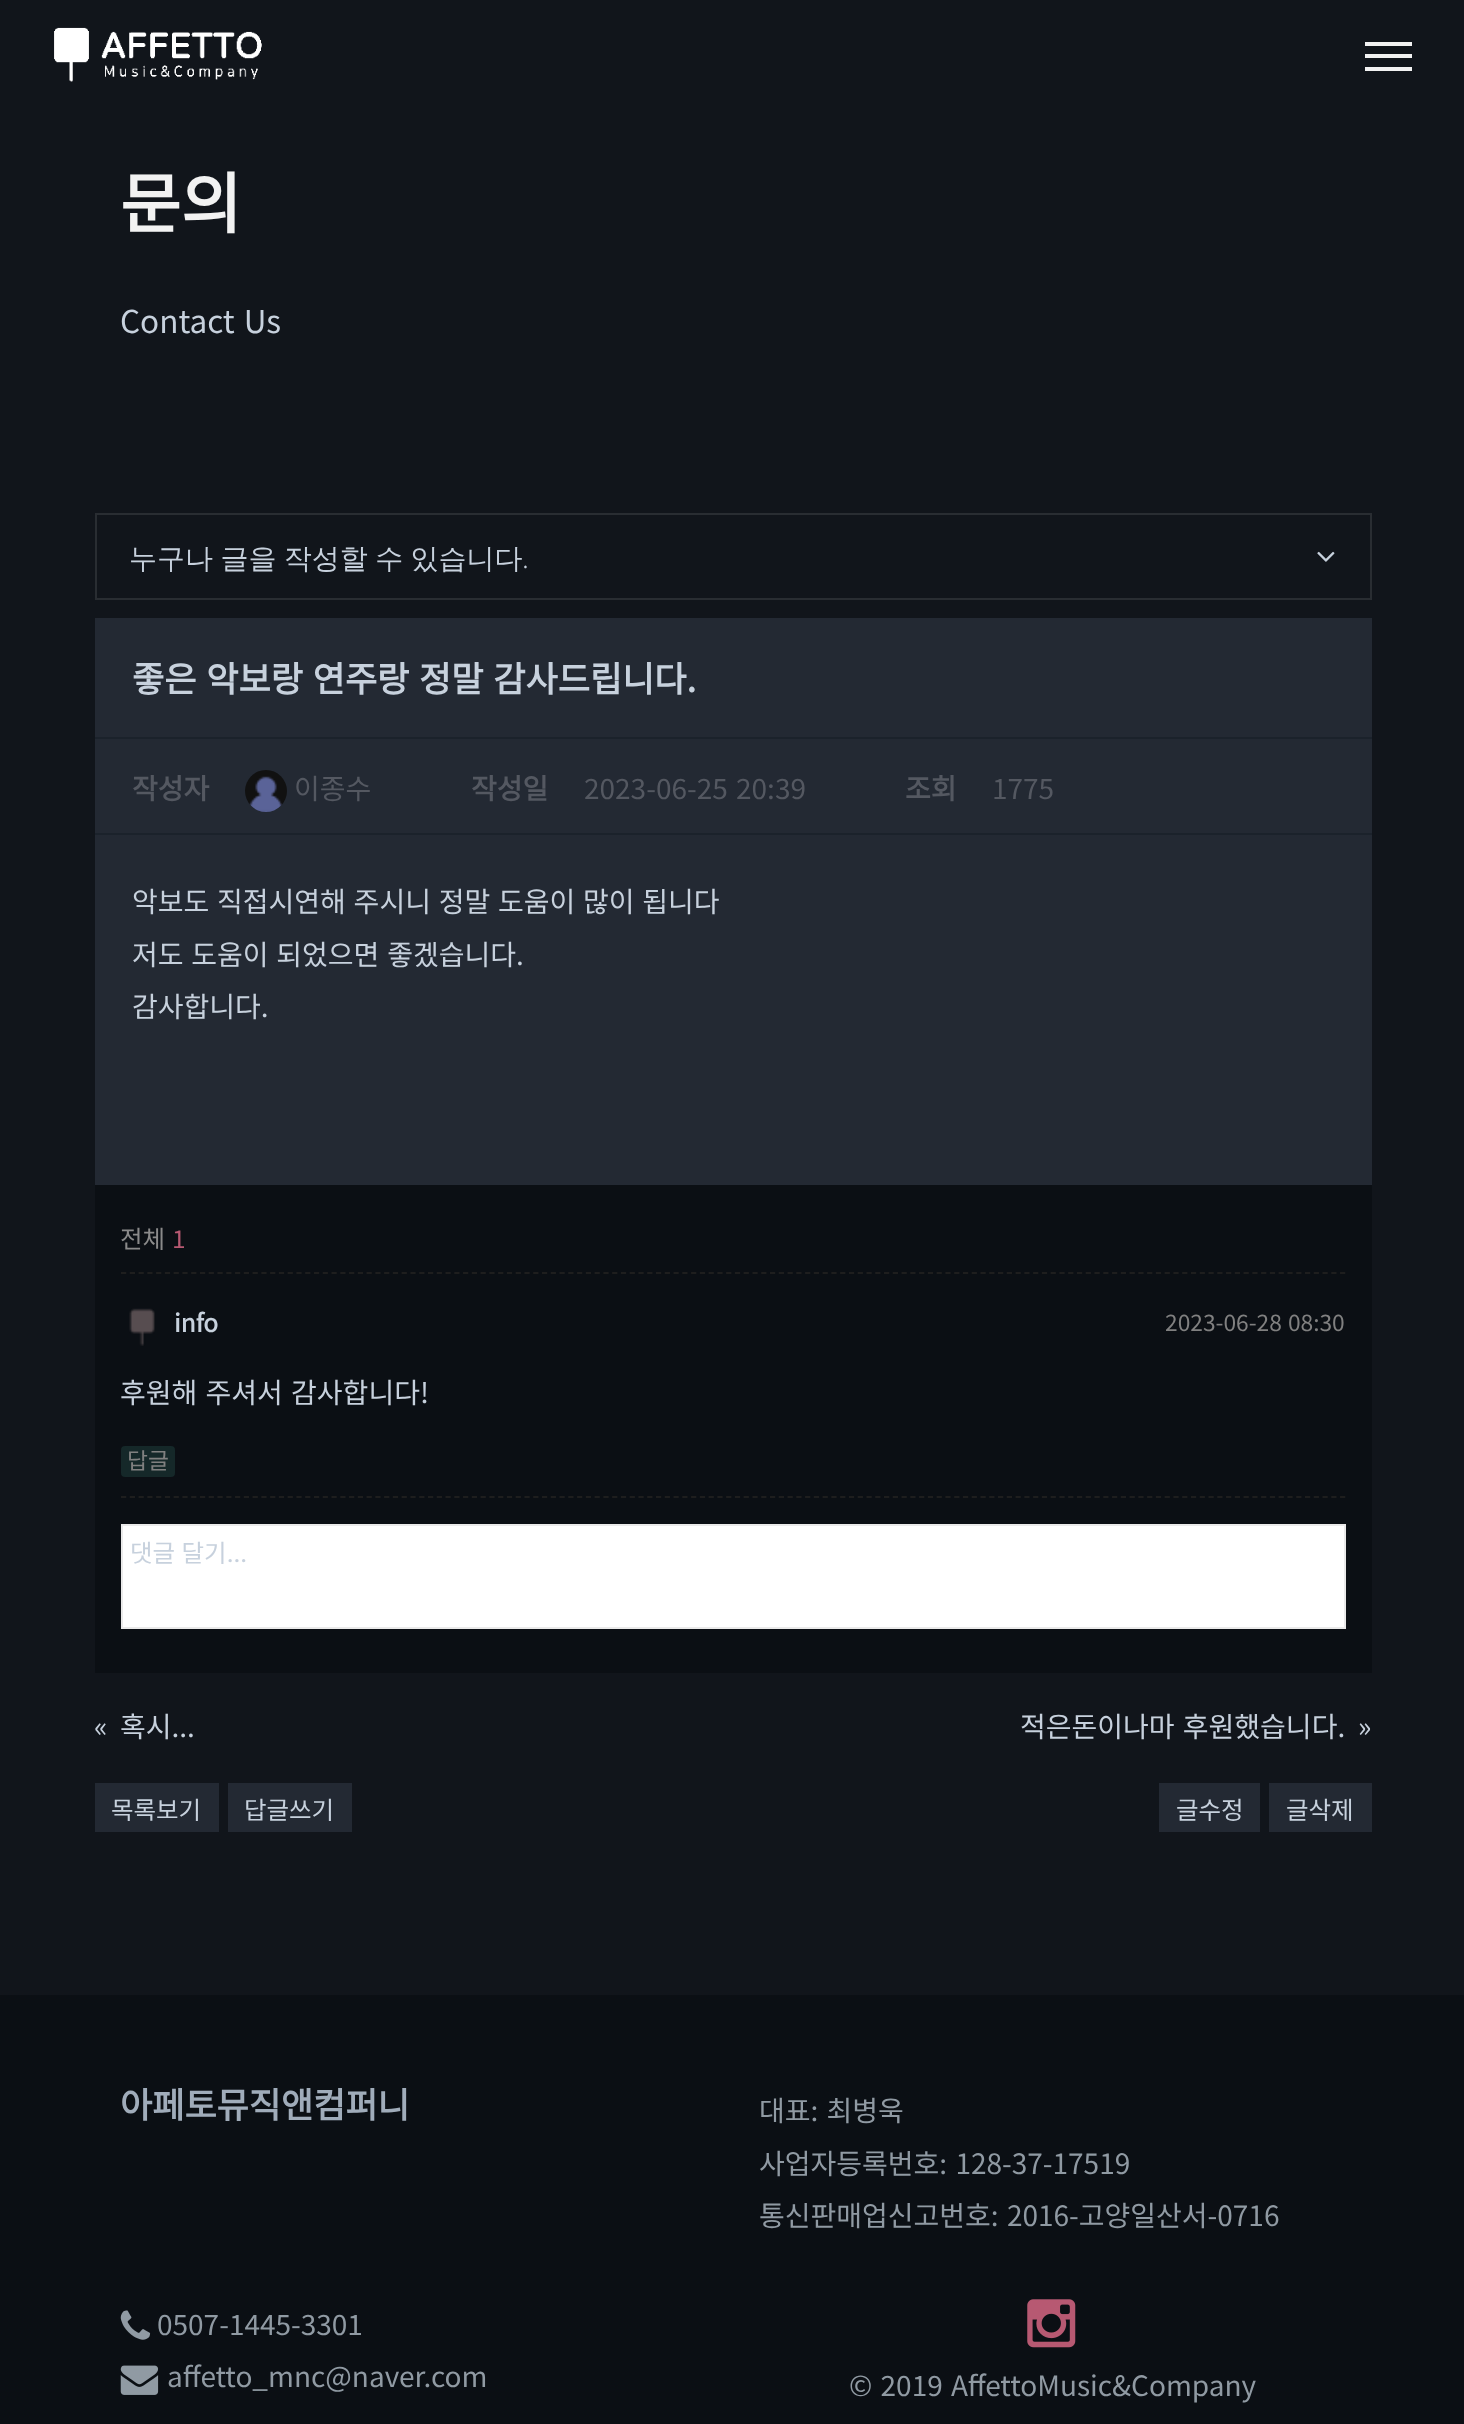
<svg xmlns="http://www.w3.org/2000/svg" width="1464" height="2424">
<rect width="100%" height="100%" fill="#11151b"/>
<image x="54" y="27" width="208" height="55" href="media/1.png"/>
<rect x="1365" y="42" width="47" height="4" fill="#f2f2f2"/>
<rect x="1365" y="54" width="47" height="4" fill="#f2f2f2"/>
<rect x="1365" y="67" width="47" height="4" fill="#f2f2f2"/>
<text x="120" y="228" style="font-family:Noto Sans KR;font-size:66px;font-weight:bold;fill:#f2f2f2">문의</text>
<text x="120" y="333" word-spacing="2" style="font-family:Noto Sans KR;font-size:31.5px;font-weight:100;fill:#c7d1dd">Contact Us</text>
<rect x="96" y="514" width="1275" height="85" fill="none" stroke="#292d32" stroke-width="2"/>
<text x="129" y="568" word-spacing="-1" style="font-family:WenQuanYi Zen Hei;font-size:28px;font-weight:500;fill:#c7d1dd">누구나 글을 작성할 수 있습니다</text>
<text x="522" y="568" style="font-family:Noto Sans;font-size:28px;font-weight:300;fill:#c7d1dd">.</text>
<image x="1317" y="551" width="18" height="11" href="media/2.png"/>
<rect x="95" y="618" width="1277" height="567" fill="#232933"/>
<text x="132" y="692" word-spacing="2" style="font-family:Noto Sans KR;font-size:35px;font-weight:bold;fill:#c7d1dd">좋은 악보랑 연주랑 정말 감사드립니다.</text>
<rect x="95" y="737" width="1277" height="2" fill="#1b222b"/>
<rect x="95" y="833" width="1277" height="2" fill="#1b222b"/>
<text x="132" y="799" style="font-family:Noto Sans KR;font-size:28px;font-weight:bold;fill:#545861">작성자</text>
<image x="245" y="770" width="42" height="42" href="media/3.png"/>
<text x="294" y="799" style="font-family:Noto Sans KR;font-size:28px;font-weight:100;fill:#545861">이종수</text>
<text x="471" y="799" style="font-family:Noto Sans KR;font-size:28px;font-weight:bold;fill:#545861">작성일</text>
<text x="584" y="799" word-spacing="2" style="font-family:Noto Sans KR;font-size:28px;font-weight:100;fill:#545861">2023-06-25 20:39</text>
<text x="905" y="799" style="font-family:Noto Sans KR;font-size:28px;font-weight:bold;fill:#545861">조회</text>
<text x="992" y="799" style="font-family:Noto Sans KR;font-size:28px;font-weight:100;fill:#545861">1775</text>
<text x="132" y="912" word-spacing="1.5" style="font-family:Noto Sans KR;font-size:28px;font-weight:100;fill:#c7d1dd">악보도 직접시연해 주시니 정말 도움이 많이 됩니다</text>
<text x="132" y="965" word-spacing="1.5" style="font-family:Noto Sans KR;font-size:28px;font-weight:100;fill:#c7d1dd">저도 도움이 되었으면 좋겠습니다.</text>
<text x="132" y="1017" style="font-family:Noto Sans KR;font-size:28px;font-weight:100;fill:#c7d1dd">감사합니다.</text>
<rect x="95" y="1185" width="1277" height="488" fill="#0b0f14"/>
<text x="120" y="1248" style="font-family:Noto Sans KR;font-size:24.5px;font-weight:100;fill:#8a8a8a">전체</text>
<text x="172" y="1248" style="font-family:Noto Sans KR;font-size:24.5px;font-weight:100;fill:#b75972">1</text>
<path d="M121 1273h1225" fill="none" stroke="#1e1e1e" stroke-width="1.8" stroke-dasharray="5.25 3.52"/>
<image x="129" y="1308" width="26" height="38" href="media/4.png"/>
<text x="174" y="1332" style="font-family:Noto Sans KR;font-size:24.5px;font-weight:bold;fill:#c7d1dd">info</text>
<text x="1165" y="1331" word-spacing="1" style="font-family:Noto Sans KR;font-size:22.75px;font-weight:100;fill:#808080">2023-06-28 08:30</text>
<text x="120" y="1403" word-spacing="2" style="font-family:Noto Sans KR;font-size:28px;font-weight:100;fill:#c7d1dd">후원해 주셔서 감사합니다!</text>
<rect x="121" y="1446" width="54" height="31" rx="4" fill="#152829"/>
<text x="127" y="1469" style="font-family:Noto Sans KR;font-size:22.75px;font-weight:100;fill:#808080">답글</text>
<path d="M121 1497h1225" fill="none" stroke="#1e1e1e" stroke-width="1.8" stroke-dasharray="5.25 3.52"/>
<rect x="122" y="1525" width="1223" height="103" fill="#fff" stroke="#eaeaea" stroke-width="2"/>
<text x="130" y="1562" word-spacing="1" style="font-family:Noto Sans KR;font-size:24.5px;font-weight:100;fill:#c7d1dd">댓글 달기...</text>
<text x="94" y="1737" style="font-family:Noto Sans KR;font-size:28px;font-weight:100;fill:#c7d1dd">«</text>
<text x="120" y="1737" style="font-family:Noto Sans KR;font-size:28px;font-weight:100;fill:#c7d1dd">혹시...</text>
<text x="1020" y="1737" word-spacing="2" style="font-family:Noto Sans KR;font-size:28px;font-weight:100;fill:#c7d1dd">적은돈이나마 후원했습니다.</text>
<text x="1358" y="1737" style="font-family:Noto Sans KR;font-size:28px;font-weight:100;fill:#c7d1dd">»</text>
<rect x="95" y="1783" width="124" height="49" fill="#232933"/>
<text x="111" y="1819" style="font-family:Noto Sans KR;font-size:24.5px;font-weight:100;fill:#c7d1dd">목록보기</text>
<rect x="228" y="1783" width="124" height="49" fill="#232933"/>
<text x="244" y="1819" style="font-family:Noto Sans KR;font-size:24.5px;font-weight:100;fill:#c7d1dd">답글쓰기</text>
<rect x="1159" y="1783" width="101" height="49" fill="#232933"/>
<text x="1176" y="1819" style="font-family:Noto Sans KR;font-size:24.5px;font-weight:100;fill:#c7d1dd">글수정</text>
<rect x="1269" y="1783" width="103" height="49" fill="#232933"/>
<text x="1286" y="1819" style="font-family:Noto Sans KR;font-size:24.5px;font-weight:100;fill:#c7d1dd">글삭제</text>
<rect y="1995" width="1464" height="429" fill="#0b0f14"/>
<text x="120" y="2118" style="font-family:Noto Sans KR;font-size:35px;font-weight:bold;fill:#a0acba">아페토뮤직앤컴퍼니</text>
<text x="759" y="2121" word-spacing="2" style="font-family:Noto Sans KR;font-size:28px;font-weight:100;fill:#909aa3">대표: 최병욱</text>
<text x="759" y="2174" word-spacing="2" style="font-family:Noto Sans KR;font-size:28px;font-weight:100;fill:#909aa3">사업자등록번호: 128-37-17519</text>
<text x="759" y="2226" word-spacing="2" style="font-family:Noto Sans KR;font-size:28px;font-weight:100;fill:#909aa3">통신판매업신고번호: 2016-고양일산서-0716</text>
<image x="120" y="2310" width="31" height="30" href="media/5.png"/>
<text x="157" y="2335" style="font-family:Noto Sans KR;font-size:28px;font-weight:100;fill:#909aa3">0507-1445-3301</text>
<image x="120" y="2365" width="39" height="30" href="media/6.png"/>
<text x="167" y="2387" style="font-family:Noto Sans KR;font-size:28px;font-weight:100;fill:#909aa3">affetto_mnc@naver.com</text>
<image x="1027" y="2299" width="49" height="49" href="media/7.png"/>
<text x="849" y="2396" word-spacing="2" style="font-family:Noto Sans KR;font-size:28px;font-weight:100;fill:#909aa3">© 2019 AffettoMusic&amp;Company</text>
</svg>
